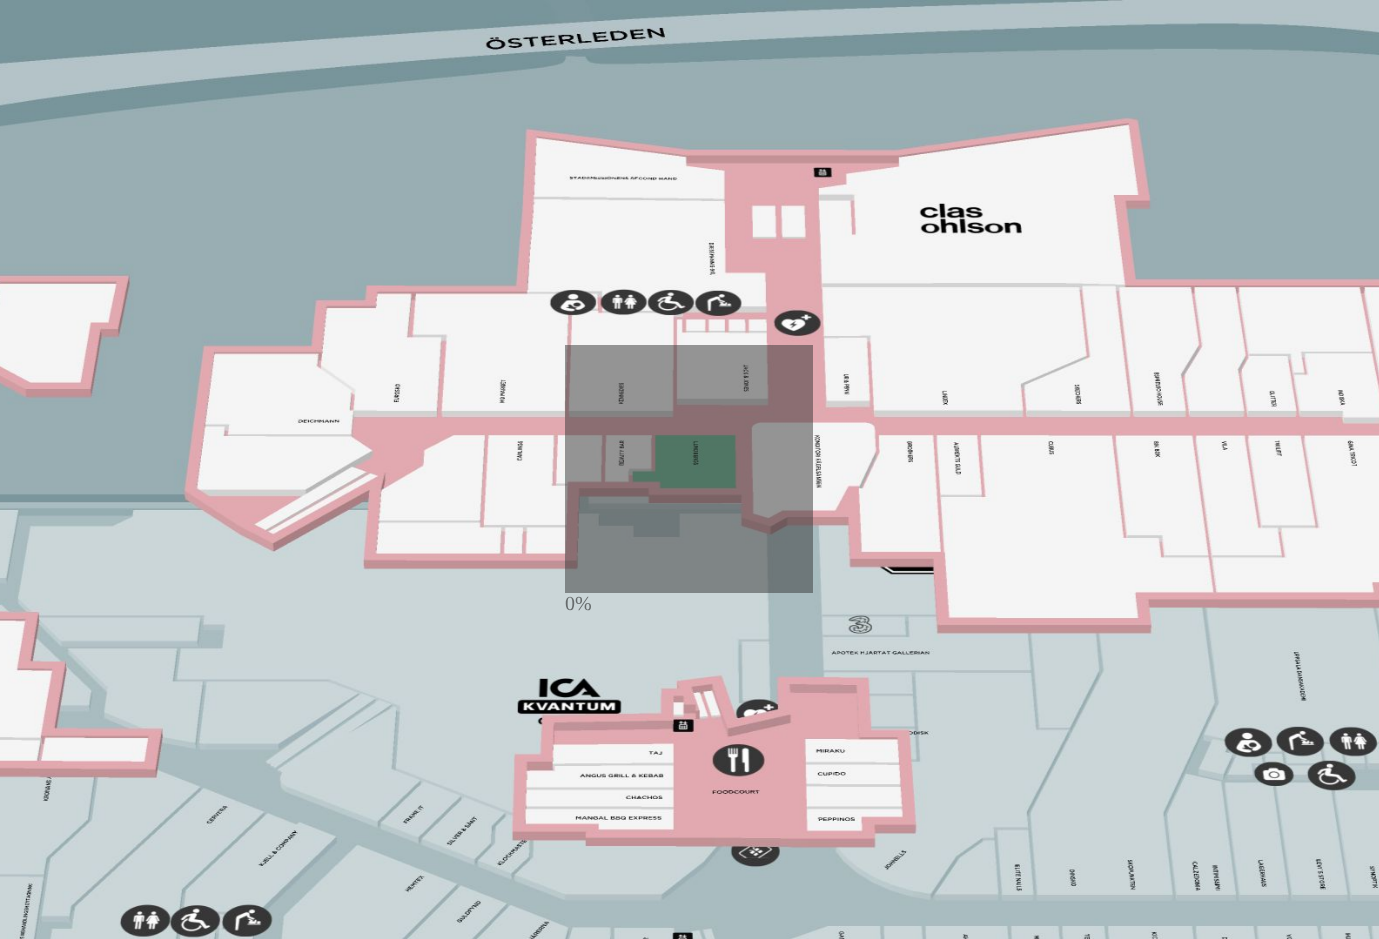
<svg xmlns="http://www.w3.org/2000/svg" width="1379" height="939">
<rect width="100%" height="100%" fill="#fff"/>
<image x="0" y="0" width="1379" height="939" href="media/1.png"/>
<rect x="565" y="345" width="83" height="83" fill="#33333380"/>
<rect x="648" y="345" width="82" height="83" fill="#33333380"/>
<rect x="730" y="345" width="83" height="83" fill="#33333380"/>
<rect x="565" y="428" width="83" height="82" fill="#33333380"/>
<rect x="648" y="428" width="82" height="82" fill="#33333380"/>
<rect x="730" y="428" width="83" height="82" fill="#33333380"/>
<rect x="565" y="510" width="83" height="83" fill="#33333380"/>
<rect x="648" y="510" width="82" height="83" fill="#33333380"/>
<rect x="730" y="510" width="83" height="83" fill="#33333380"/>
<text x="565" y="610" style="font-family:Liberation Serif;font-size:20px;fill:#666b6c">0%</text>
</svg>
